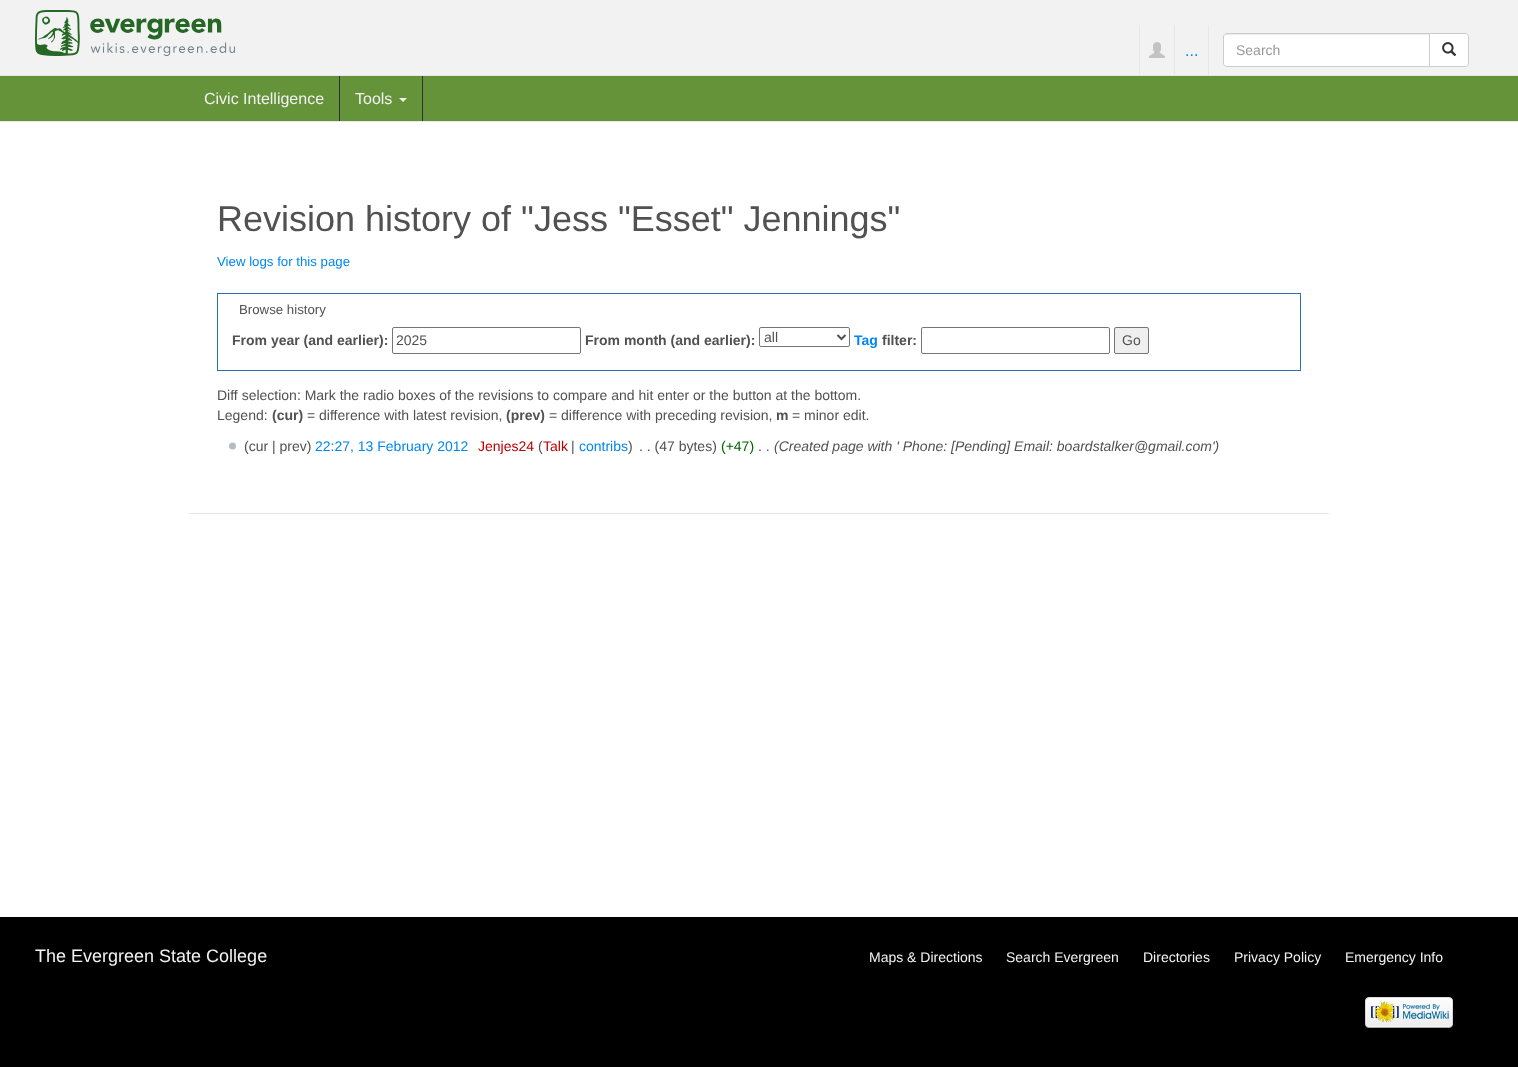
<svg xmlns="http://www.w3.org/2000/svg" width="1518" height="1067">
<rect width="100%" height="100%" fill="#fff"/>
<rect width="1518" height="75" fill="#f2f2f2"/>
<image x="35" y="10" width="200" height="46" href="media/1.png"/>
<rect x="1174" y="25" width="1" height="50" fill="#e7e7e7"/>
<rect x="1139" y="25" width="1" height="50" fill="#e7e7e7"/>
<image x="1149" y="42" width="16" height="16" href="media/2.png"/>
<rect x="1208" y="25" width="1" height="50" fill="#e7e7e7"/>
<text x="1185" y="56" style="font-family:Liberation Sans;font-size:16px;fill:#0086ee">...</text>
<path d="M1227 33h203v34h-203c-2 0-4-2-4-4v-26c0-2 2-4 4-4z" fill="#fff"/>
<path d="M1227 35h202v-1h-203c-2 1-2 2-2 4c0-2 1-3 3-3z" fill="#ececec"/>
<path d="M1227 33.5h202.5v33h-202.5c-2 0-3.5-1.5-3.5-3.5v-26c0-2 1.5-3.5 3.5-3.5z" fill="none" stroke="#ccc"/>
<text x="1236" y="55" style="font-family:Liberation Sans;font-size:14px;fill:#999">Search</text>
<path d="M1429.5 33.5h35.5c2 0 3.5 1.5 3.5 3.5v26c0 2-1.5 3.5-3.5 3.5h-35.5z" fill="#fff" stroke="#ccc"/>
<image x="1442" y="42" width="15" height="14" href="media/3.png"/>
<rect y="76" width="1518" height="45" fill="#64933a"/>
<rect y="75" width="1518" height="1" fill="#e7e7e7"/>
<rect y="121" width="1518" height="1" fill="#e7e7e7"/>
<rect x="339" y="76" width="1" height="45" fill="#303030"/>
<text x="204" y="104" style="font-family:Liberation Sans;font-size:16px;fill:#f2f2f2">Civic Intelligence</text>
<rect x="422" y="76" width="1" height="45" fill="#303030"/>
<text x="355" y="104" style="font-family:Liberation Sans;font-size:16px;fill:#f2f2f2">Tools</text>
<path d="M399 98h8l-4 4z" fill="#f2f2f2"/>
<text x="217" y="231" style="font-family:Liberation Sans;font-size:36px;fill:#515151">Revision history of "Jess "Esset" Jennings"</text>
<text x="217" y="266" style="font-family:Liberation Sans;font-size:13.25px;fill:#0086ee">View logs for this page</text>
<rect x="217.5" y="293.5" width="1083" height="77" fill="none" stroke="#2f6fab"/>
<text x="239" y="314" style="font-family:Liberation Sans;font-size:13.25px;fill:#515151">Browse history</text>
<text x="232" y="345" style="font-family:Liberation Sans;font-size:14px;font-weight:bold;fill:#515151">From year (and earlier):</text>
<rect x="392.5" y="327.5" width="188" height="26" rx="1.5" fill="none" stroke="#767676"/>
<text x="396" y="345" style="font-family:Liberation Sans;font-size:14px;fill:#515151">2025</text>
<text x="585" y="345" style="font-family:Liberation Sans;font-size:14px;font-weight:bold;fill:#515151">From month (and earlier):</text>
<rect x="759.5" y="327.5" width="90" height="19" rx="1.5" fill="none" stroke="#767676"/>
<path d="M837.5 335l4 4l4-4" fill="none" stroke="#515151" stroke-width="2"/>
<text x="764" y="342" style="font-family:Liberation Sans;font-size:14px;fill:#515151">all</text>
<text x="854" y="345" style="font-family:Liberation Sans;font-size:14px;font-weight:bold;fill:#0086ee">Tag</text>
<text x="882" y="345" style="font-family:Liberation Sans;font-size:14px;font-weight:bold;fill:#515151">filter:</text>
<rect x="921.5" y="327.5" width="188" height="26" rx="1.5" fill="none" stroke="#767676"/>
<rect x="1114.5" y="327.5" width="34" height="26" rx="1.5" fill="#efefef" stroke="#767676"/>
<text x="1122" y="345" style="font-family:Liberation Sans;font-size:14px;fill:#515151">Go</text>
<text x="217" y="400" style="font-family:Liberation Sans;font-size:14px;fill:#515151">Diff selection: Mark the radio boxes of the revisions to compare and hit enter or the button at the bottom.</text>
<text x="217" y="420" style="font-family:Liberation Sans;font-size:14px;fill:#515151">Legend:</text>
<text x="272" y="420" style="font-family:Liberation Sans;font-size:14px;font-weight:bold;fill:#515151">(cur)</text>
<text x="307" y="420" style="font-family:Liberation Sans;font-size:14px;fill:#515151">= difference with latest revision,</text>
<text x="506" y="420" style="font-family:Liberation Sans;font-size:14px;font-weight:bold;fill:#515151">(prev)</text>
<text x="549" y="420" style="font-family:Liberation Sans;font-size:14px;fill:#515151">= difference with preceding revision,</text>
<text x="776" y="420" style="font-family:Liberation Sans;font-size:14px;font-weight:bold;fill:#515151">m</text>
<text x="792" y="420" style="font-family:Liberation Sans;font-size:14px;fill:#515151">= minor edit.</text>
<image x="229" y="442" width="7" height="8" href="media/4.png"/>
<text x="244" y="451" style="font-family:Liberation Sans;font-size:14px;fill:#515151">(cur | prev)</text>
<text x="315" y="451" style="font-family:Liberation Sans;font-size:14px;fill:#0086ee">22:27, 13 February 2012</text>
<text x="478" y="451" style="font-family:Liberation Sans;font-size:14px;fill:#ba0000">Jenjes24</text>
<text x="538" y="451" style="font-family:Liberation Sans;font-size:14px;fill:#515151">(</text>
<text x="543" y="451" style="font-family:Liberation Sans;font-size:14px;fill:#ba0000">Talk</text>
<text x="571" y="451" style="font-family:Liberation Sans;font-size:14px;fill:#515151">|</text>
<text x="579" y="451" style="font-family:Liberation Sans;font-size:14px;fill:#0086ee">contribs</text>
<text x="628" y="451" style="font-family:Liberation Sans;font-size:14px;fill:#515151">)</text>
<text x="639" y="451" style="font-family:Liberation Sans;font-size:14px;fill:#515151">. . (47 bytes)</text>
<text x="721" y="451" style="font-family:Liberation Sans;font-size:14px;fill:#006400">(+47)</text>
<text x="758" y="451" style="font-family:Liberation Sans;font-size:14px;fill:#515151">. .</text>
<text x="774" y="451" style="font-family:Liberation Sans;font-size:14px;font-style:italic;fill:#515151">(Created page with ' Phone: [Pending] Email: boardstalker@gmail.com')</text>
<rect x="189" y="513" width="1140" height="1" fill="#e5e5e5"/>
<rect y="917" width="1518" height="150" fill="#000"/>
<text x="35" y="962" style="font-family:Liberation Sans;font-size:18px;fill:#f2f2f2">The Evergreen State College</text>
<text x="869" y="962" style="font-family:Liberation Sans;font-size:14px;fill:#f2f2f2">Maps &amp; Directions</text>
<text x="1006" y="962" style="font-family:Liberation Sans;font-size:14px;fill:#f2f2f2">Search Evergreen</text>
<text x="1143" y="962" style="font-family:Liberation Sans;font-size:14px;fill:#f2f2f2">Directories</text>
<text x="1234" y="962" style="font-family:Liberation Sans;font-size:14px;fill:#f2f2f2">Privacy Policy</text>
<text x="1345" y="962" style="font-family:Liberation Sans;font-size:14px;fill:#f2f2f2">Emergency Info</text>
<image x="1365" y="997" width="88" height="31" href="media/5.png"/>
</svg>
